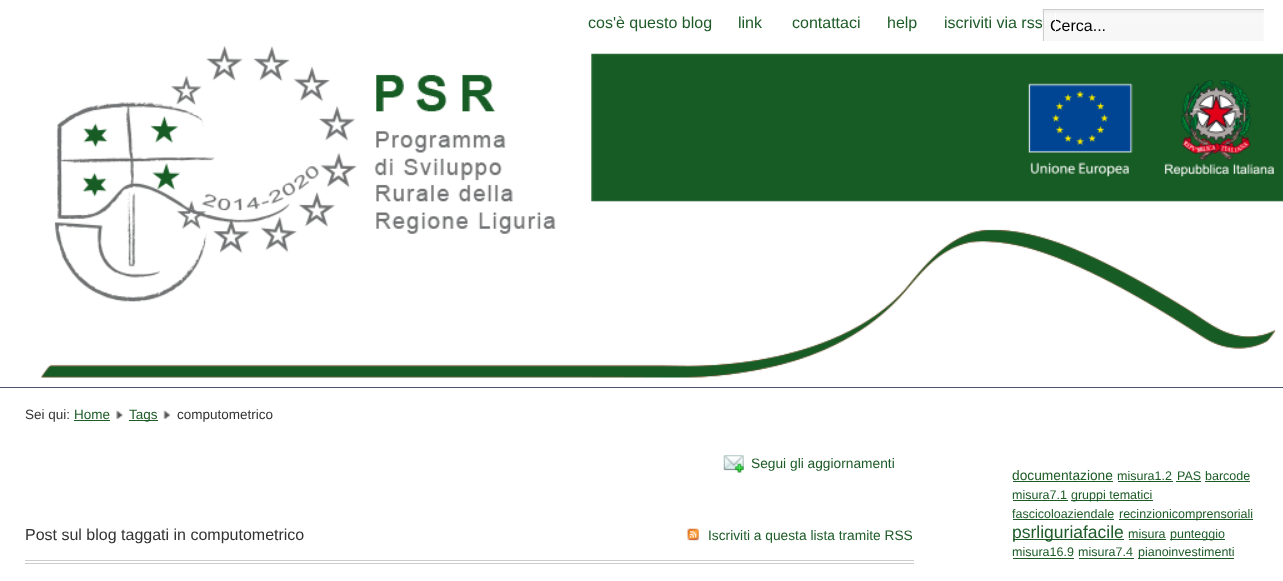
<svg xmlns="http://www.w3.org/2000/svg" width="1283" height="581">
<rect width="100%" height="100%" fill="#fff"/>
<rect y="387" width="1283" height="1" fill="#0c1a3e"/>
<image x="0" y="25" width="1283" height="363" href="media/2.png"/>
<text x="588" y="28" style="font-family:Liberation Sans;font-size:16px;fill:#1d5b27">cos'è questo blog</text>
<text x="738" y="28" style="font-family:Liberation Sans;font-size:16px;fill:#1d5b27">link</text>
<text x="792" y="28" style="font-family:Liberation Sans;font-size:16px;fill:#1d5b27">contattaci</text>
<text x="887" y="28" style="font-family:Liberation Sans;font-size:16px;fill:#1d5b27">help</text>
<text x="944" y="28" style="font-family:Liberation Sans;font-size:16px;fill:#1d5b27">iscriviti via rss</text>
<image x="1042" y="10" width="222" height="31" href="media/1.png"/>
<text x="1050" y="31" style="font-family:Liberation Sans;font-size:16px;fill:#000">Cerca...</text>
<rect x="1055" y="13" width="1" height="18" fill="#fff"/>
<rect x="1043" y="9" width="221" height="1" fill="#ccc"/>
<rect x="1043" y="9" width="1" height="32" fill="#ccc"/>
<text x="25" y="419" style="font-family:Liberation Sans;font-size:13.5px;fill:#333">Sei qui:</text>
<text x="74" y="419" style="font-family:Liberation Sans;font-size:13.5px;fill:#1d5b27">Home</text>
<rect x="74" y="420" width="36" height="1" fill="#1d5b27"/>
<image x="116" y="410" width="7" height="9" href="media/3.png"/>
<rect x="129" y="420" width="29" height="1" fill="#1d5b27"/>
<text x="129" y="419" style="font-family:Liberation Sans;font-size:13.5px;fill:#1d5b27">Tags</text>
<image x="163" y="410" width="8" height="9" href="media/4.png"/>
<text x="177" y="419" style="font-family:Liberation Sans;font-size:13.5px;fill:#333">computometrico</text>
<image x="723" y="455" width="21" height="18" href="media/5.png"/>
<text x="751" y="468" style="font-family:Liberation Sans;font-size:13.75px;fill:#1d5b27">Segui gli aggiornamenti</text>
<rect x="25" y="560" width="889" height="1" fill="#ccc"/>
<rect x="25" y="563" width="889" height="1" fill="#ccc"/>
<text x="25" y="540" style="font-family:Liberation Sans;font-size:16px;fill:#333">Post sul blog taggati in computometrico</text>
<image x="687" y="528" width="12" height="13" href="media/6.png"/>
<text x="708" y="540" style="font-family:Liberation Sans;font-size:13.75px;fill:#1d5b27">Iscriviti a questa lista tramite RSS</text>
<text x="1012" y="480" style="font-family:Liberation Sans;font-size:13.75px;fill:#1d5b27">documentazione</text>
<rect x="1013" y="481" width="100" height="1" fill="#1d5b27"/>
<text x="1117" y="480" style="font-family:Liberation Sans;font-size:12.5px;fill:#1d5b27">misura1.2</text>
<rect x="1118" y="481" width="55" height="1" fill="#1d5b27"/>
<text x="1177" y="480" style="font-family:Liberation Sans;font-size:12.5px;fill:#1d5b27">PAS</text>
<rect x="1176" y="481" width="25" height="1" fill="#1d5b27"/>
<text x="1205" y="480" style="font-family:Liberation Sans;font-size:12.5px;fill:#1d5b27">barcode</text>
<rect x="1205" y="481" width="45" height="1" fill="#1d5b27"/>
<text x="1012" y="499" style="font-family:Liberation Sans;font-size:12.5px;fill:#1d5b27">misura7.1</text>
<rect x="1013" y="500" width="55" height="1" fill="#1d5b27"/>
<rect x="1071" y="500" width="82" height="1" fill="#1d5b27"/>
<text x="1071" y="499" style="font-family:Liberation Sans;font-size:12.5px;fill:#1d5b27">gruppi tematici</text>
<text x="1012" y="518" style="font-family:Liberation Sans;font-size:12.5px;fill:#1d5b27">fascicoloaziendale</text>
<rect x="1013" y="519" width="101" height="1" fill="#1d5b27"/>
<rect x="1119" y="519" width="134" height="1" fill="#1d5b27"/>
<text x="1119" y="518" style="font-family:Liberation Sans;font-size:12.5px;fill:#1d5b27">recinzionicomprensoriali</text>
<rect x="1013" y="539" width="111" height="1" fill="#1d5b27"/>
<text x="1012" y="538" style="font-family:Liberation Sans;font-size:17.5px;fill:#1d5b27">psrliguriafacile</text>
<text x="1128" y="538" style="font-family:Liberation Sans;font-size:12.5px;fill:#1d5b27">misura</text>
<rect x="1129" y="539" width="37" height="1" fill="#1d5b27"/>
<rect x="1170" y="539" width="55" height="1" fill="#1d5b27"/>
<text x="1170" y="538" style="font-family:Liberation Sans;font-size:12.5px;fill:#1d5b27">punteggio</text>
<text x="1012" y="556" style="font-family:Liberation Sans;font-size:12.5px;fill:#1d5b27">misura16.9</text>
<rect x="1013" y="558" width="61" height="1" fill="#1d5b27"/>
<text x="1078" y="556" style="font-family:Liberation Sans;font-size:12.5px;fill:#1d5b27">misura7.4</text>
<rect x="1079" y="558" width="55" height="1" fill="#1d5b27"/>
<rect x="1138" y="558" width="96" height="1" fill="#1d5b27"/>
<text x="1138" y="556" style="font-family:Liberation Sans;font-size:12.5px;fill:#1d5b27">pianoinvestimenti</text>
</svg>
